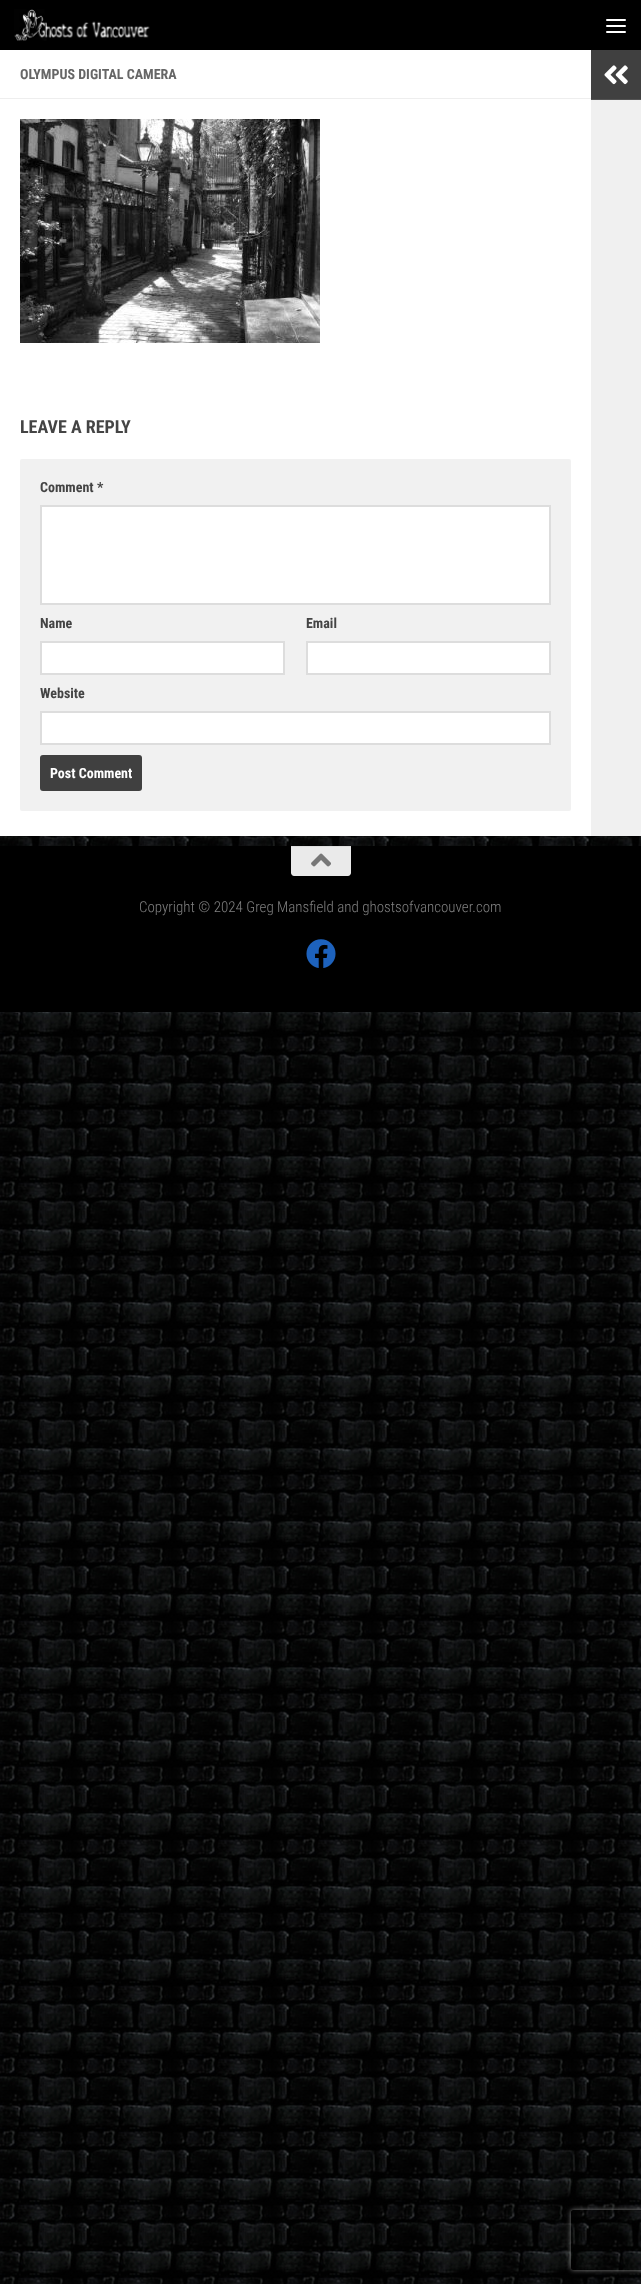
<svg xmlns="http://www.w3.org/2000/svg" width="641" height="2284">
<defs>
<clipPath id="clip1"><path d="M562 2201h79v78h-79zm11 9h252c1 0 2 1 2 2v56c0 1-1 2-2 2h-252c-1 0-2-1-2-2v-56c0-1 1-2 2-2z" clip-rule="evenodd"/></clipPath>
</defs>
<rect width="100%" height="100%" fill="#fff"/>
<image x="0" y="836" width="641" height="1448" href="media/1.png"/>
<rect y="51" width="641" height="786" fill="#0000001a" filter="blur(0.5px)"/>
<rect width="641" height="50" fill="#000"/>
<image x="14" y="9" width="136" height="32" href="media/2.png"/>
<rect x="606" y="19" width="20" height="2" rx="1" fill="#fff"/>
<rect x="606" y="25" width="20" height="2" rx="1" fill="#fff"/>
<rect x="606" y="31" width="20" height="2" rx="1" fill="#fff"/>
<rect y="50" width="591" height="786" fill="#fff"/>
<rect y="98" width="591" height="1" fill="#eee"/>
<text x="20" y="79" style="font-family:Roboto Condensed;font-size:14px;font-weight:bold;fill:#666">OLYMPUS DIGITAL CAMERA</text>
<image x="20" y="119" width="300" height="224" href="media/3.png"/>
<text x="20" y="433" style="font-family:Roboto Condensed;font-size:18px;font-weight:bold;fill:#444">LEAVE A REPLY</text>
<rect x="20" y="459" width="551" height="352" rx="2" fill="#f1f1f1"/>
<text x="40" y="492" style="font-family:Roboto Condensed;font-size:14px;font-weight:bold;fill:#444">Comment</text>
<text x="97" y="492" style="font-family:Roboto Condensed;font-size:14px;font-weight:bold;fill:#444">*</text>
<rect x="41" y="506" width="509" height="98" fill="#fff" stroke="#ddd" stroke-width="2"/>
<text x="40" y="628" style="font-family:Roboto Condensed;font-size:14px;font-weight:bold;fill:#444">Name</text>
<rect x="41" y="642" width="243" height="32" fill="#fff" stroke="#ddd" stroke-width="2"/>
<text x="306" y="628" style="font-family:Roboto Condensed;font-size:14px;font-weight:bold;fill:#444">Email</text>
<rect x="307" y="642" width="243" height="32" fill="#fff" stroke="#ddd" stroke-width="2"/>
<text x="40" y="698" style="font-family:Roboto Condensed;font-size:14px;font-weight:bold;fill:#444">Website</text>
<rect x="41" y="712" width="509" height="32" fill="#fff" stroke="#ddd" stroke-width="2"/>
<rect x="40" y="755" width="102" height="36" rx="3" fill="#404040"/>
<text x="50" y="778" style="font-family:Roboto Condensed;font-size:14px;font-weight:bold;fill:#fff">Post Comment</text>
<rect x="591" y="50" width="50" height="49" fill="#404040"/>
<rect x="591" y="99" width="50" height="1" fill="#535353"/>
<image x="604" y="65" width="24" height="20" href="media/4.png"/>
<rect x="591" y="100" width="50" height="736" fill="#f0f0f0"/>
<rect y="846" width="641" height="166" fill="#000"/>
<path d="M291 846h60v27c0 1.5-1.5 3-3 3h-54c-1.5 0-3-1.5-3-3z" fill="#eaeaea"/>
<rect x="291" y="846" width="60" height="1" fill="#dedede"/>
<image x="311" y="853" width="20" height="14" href="media/5.png"/>
<text x="139" y="912" style="font-family:Roboto Condensed;font-size:15px;font-weight:300;fill:#808080">Copyright © 2024 Greg Mansfield and ghostsofvancouver.com</text>
<image x="306" y="939" width="30" height="29" href="media/6.png"/>
<g clip-path="url(#clip1)">
<rect x="571" y="2210" width="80" height="60" rx="2" fill="#808080" filter="blur(2.5px)"/>
</g>
</svg>
